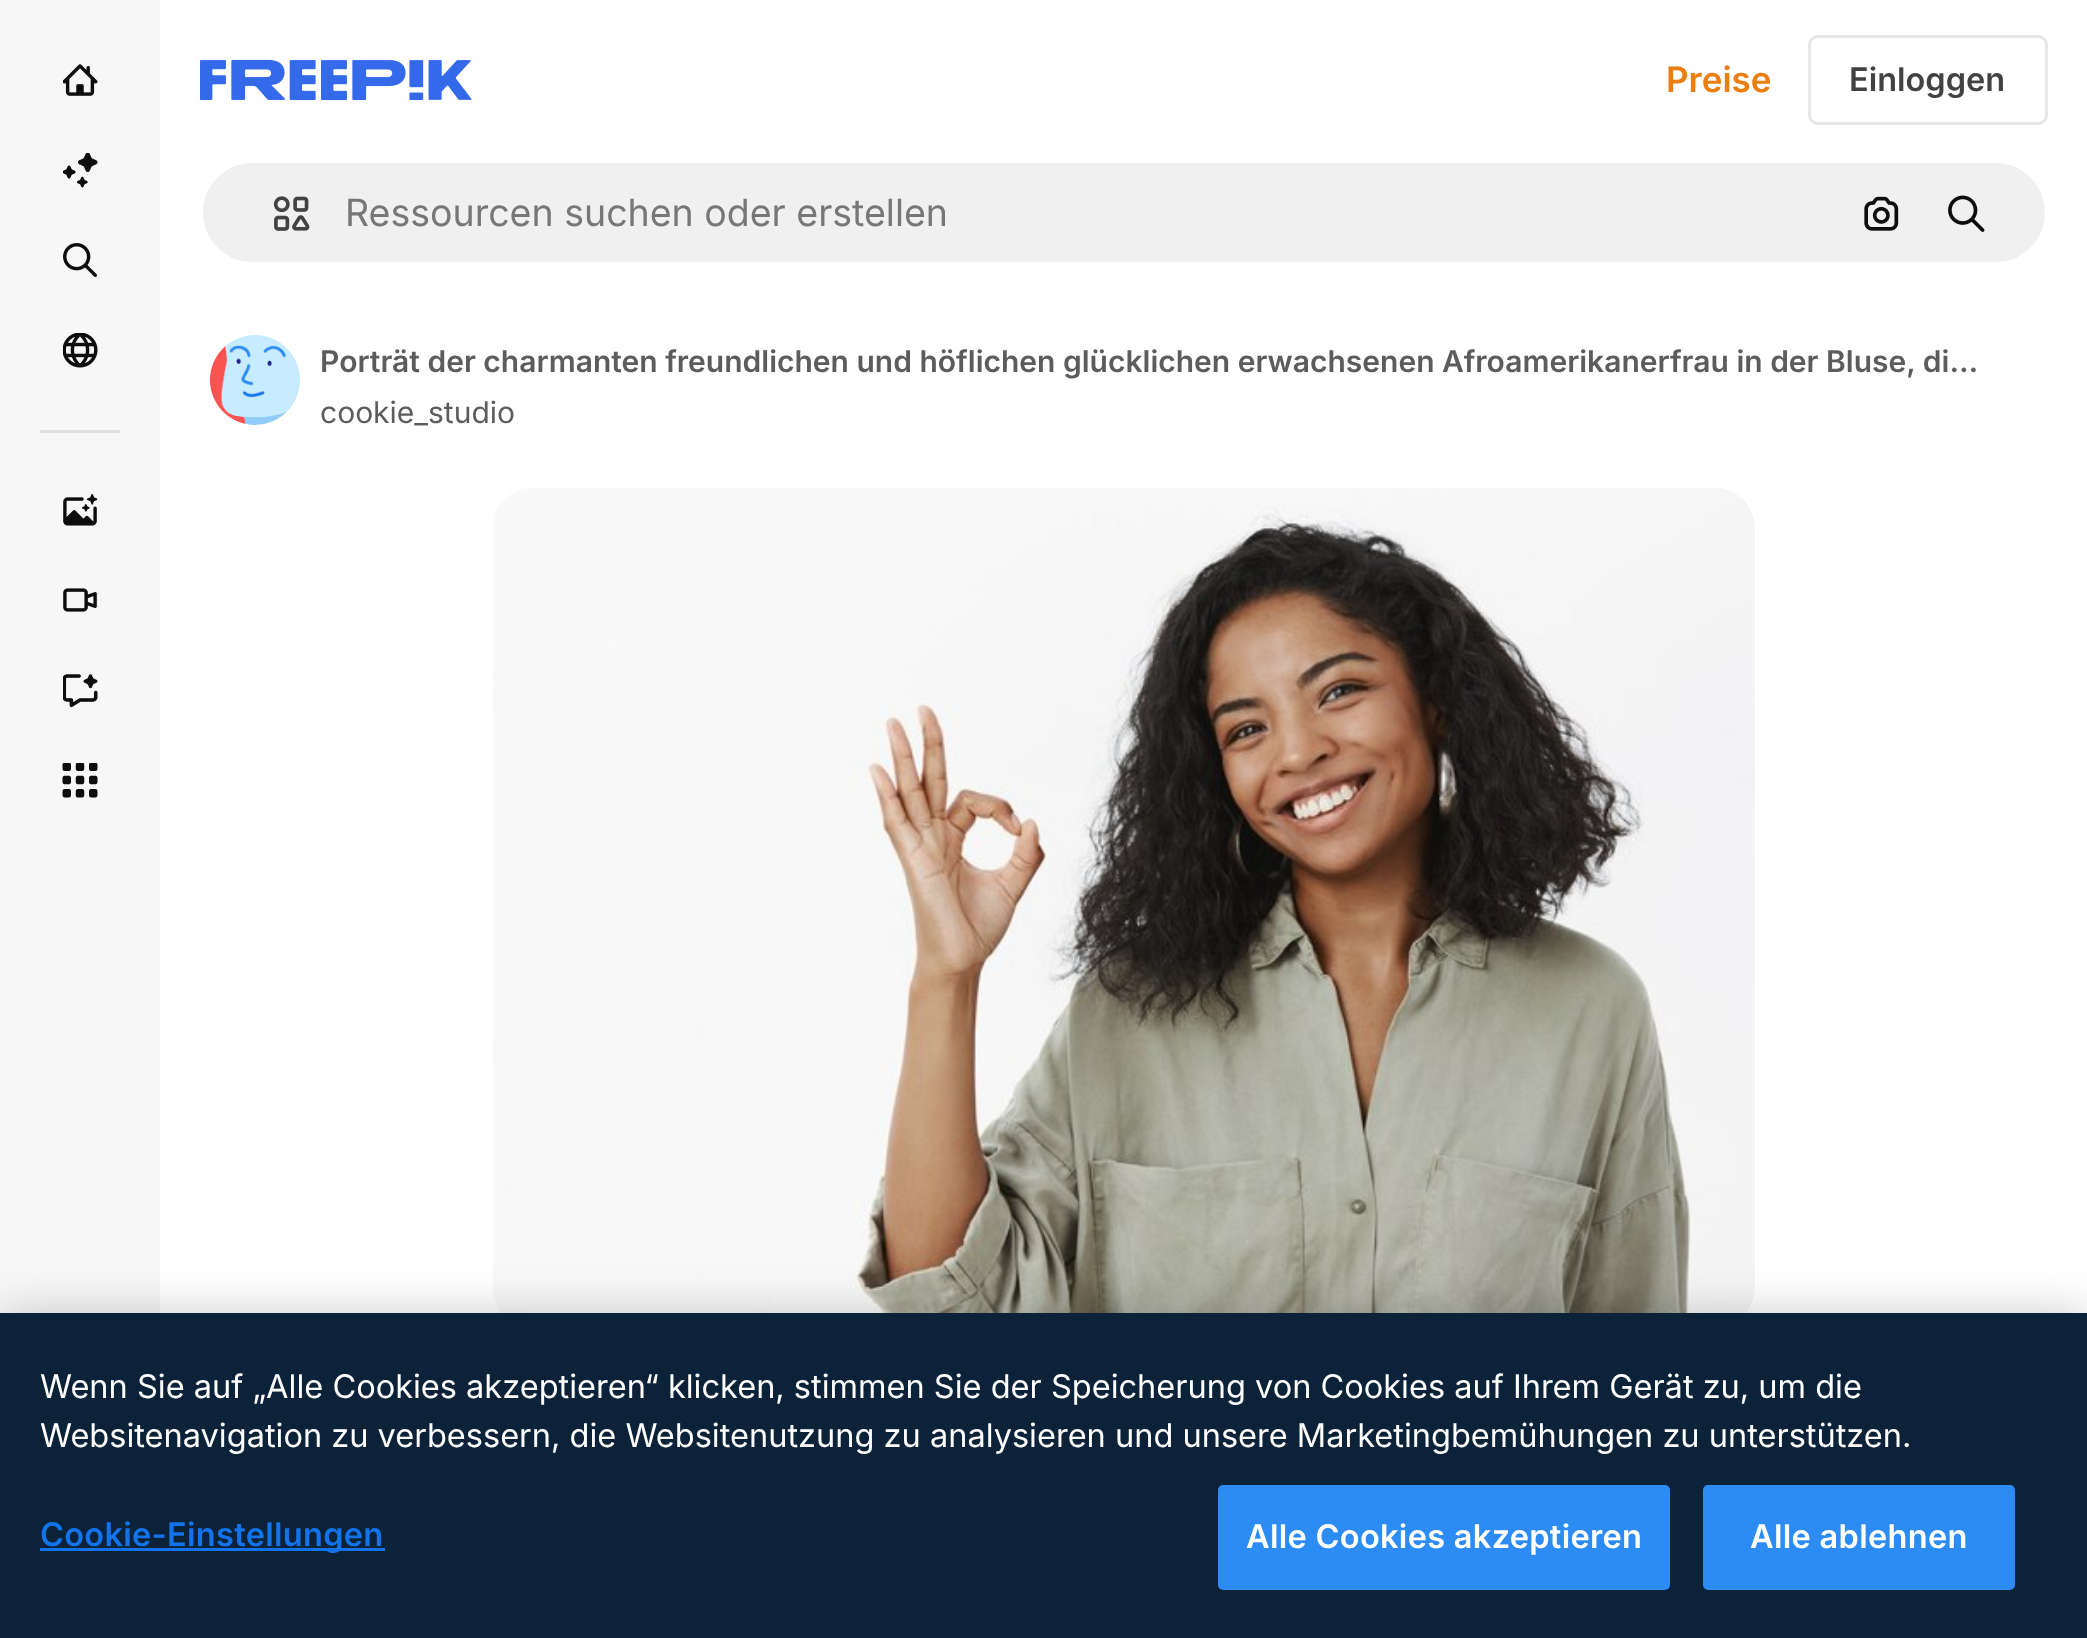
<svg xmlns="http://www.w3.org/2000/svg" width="2087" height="1638">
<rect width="100%" height="100%" fill="#fff"/>
<rect width="160" height="1313" fill="#f7f7f7"/>
<image x="63" y="64" width="35" height="32" href="media/1.png"/>
<image x="63" y="153" width="35" height="35" href="media/2.png"/>
<image x="63" y="243" width="34" height="34" href="media/3.png"/>
<image x="63" y="333" width="35" height="35" href="media/4.png"/>
<rect x="40" y="430" width="80" height="3" fill="#e0e0e0"/>
<image x="63" y="494" width="35" height="32" href="media/5.png"/>
<image x="63" y="588" width="34" height="24" href="media/6.png"/>
<image x="63" y="674" width="35" height="34" href="media/7.png"/>
<image x="62" y="763" width="36" height="35" href="media/8.png"/>
<image x="200" y="60" width="272" height="40" href="media/9.png"/>
<text x="1666" y="92" style="font-family:Inter;font-size:35px;font-weight:600;fill:#ea7e11">Preise</text>
<rect x="1809.5" y="36.5" width="237" height="87" rx="8.5" fill="none" stroke="#e7e7e7" stroke-width="3"/>
<text x="1849" y="91" style="font-family:Inter;font-size:32.5px;font-weight:600;fill:#424242">Einloggen</text>
<rect x="201.5" y="161.5" width="1845" height="102" rx="51" fill="#f0f0f0" stroke="#fff" stroke-width="3"/>
<image x="273" y="196" width="37" height="35" href="media/10.png"/>
<text x="345" y="226" style="font-family:Inter;font-size:37.5px;fill:#777">Ressourcen suchen oder erstellen</text>
<image x="1864" y="196" width="35" height="35" href="media/11.png"/>
<image x="1948" y="195" width="37" height="37" href="media/12.png"/>
<image x="210" y="335" width="90" height="90" href="media/13.png"/>
<text x="320" y="372" style="font-family:Inter;font-size:30px;font-weight:600;fill:#5c5c5c">Porträt der charmanten freundlichen und höflichen glücklichen erwachsenen Afroamerikanerfrau in der Bluse, di…</text>
<text x="320" y="423" style="font-family:Inter;font-size:30px;fill:#5c5c5c">cookie_studio</text>
<image x="493" y="488" width="1262" height="825" href="media/14.png"/>
<rect y="1313" width="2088" height="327" fill="#00000033" filter="blur(22.5px)"/>
<rect y="1313" width="2087" height="325" fill="#0b2239"/>
<text x="40" y="1398" style="font-family:Inter;font-size:32.52px;fill:#fff">Wenn Sie auf „Alle Cookies akzeptieren“ klicken, stimmen Sie der Speicherung von Cookies auf Ihrem Gerät zu, um die</text>
<text x="40" y="1447" style="font-family:Inter;font-size:32.52px;fill:#fff">Websitenavigation zu verbessern, die Websitenutzung zu analysieren und unsere Marketingbemühungen zu unterstützen.</text>
<rect x="40" y="1548" width="345" height="3" fill="#1273eb"/>
<text x="40" y="1546" style="font-family:Inter;font-size:32.52px;font-weight:600;letter-spacing:0.3px;fill:#1273eb">Cookie-Einstellungen</text>
<rect x="1219.5" y="1486.5" width="449" height="102" rx="3.5" fill="#2c8cf4" stroke="#2c8cf4" stroke-width="3"/>
<text x="1246" y="1548" style="font-family:Inter;font-size:32.52px;font-weight:600;letter-spacing:0.3px;fill:#fff">Alle Cookies akzeptieren</text>
<rect x="1704.5" y="1486.5" width="309" height="102" rx="3.5" fill="#2c8cf4" stroke="#2c8cf4" stroke-width="3"/>
<text x="1750" y="1548" style="font-family:Inter;font-size:32.52px;font-weight:600;letter-spacing:0.3px;fill:#fff">Alle ablehnen</text>
</svg>
